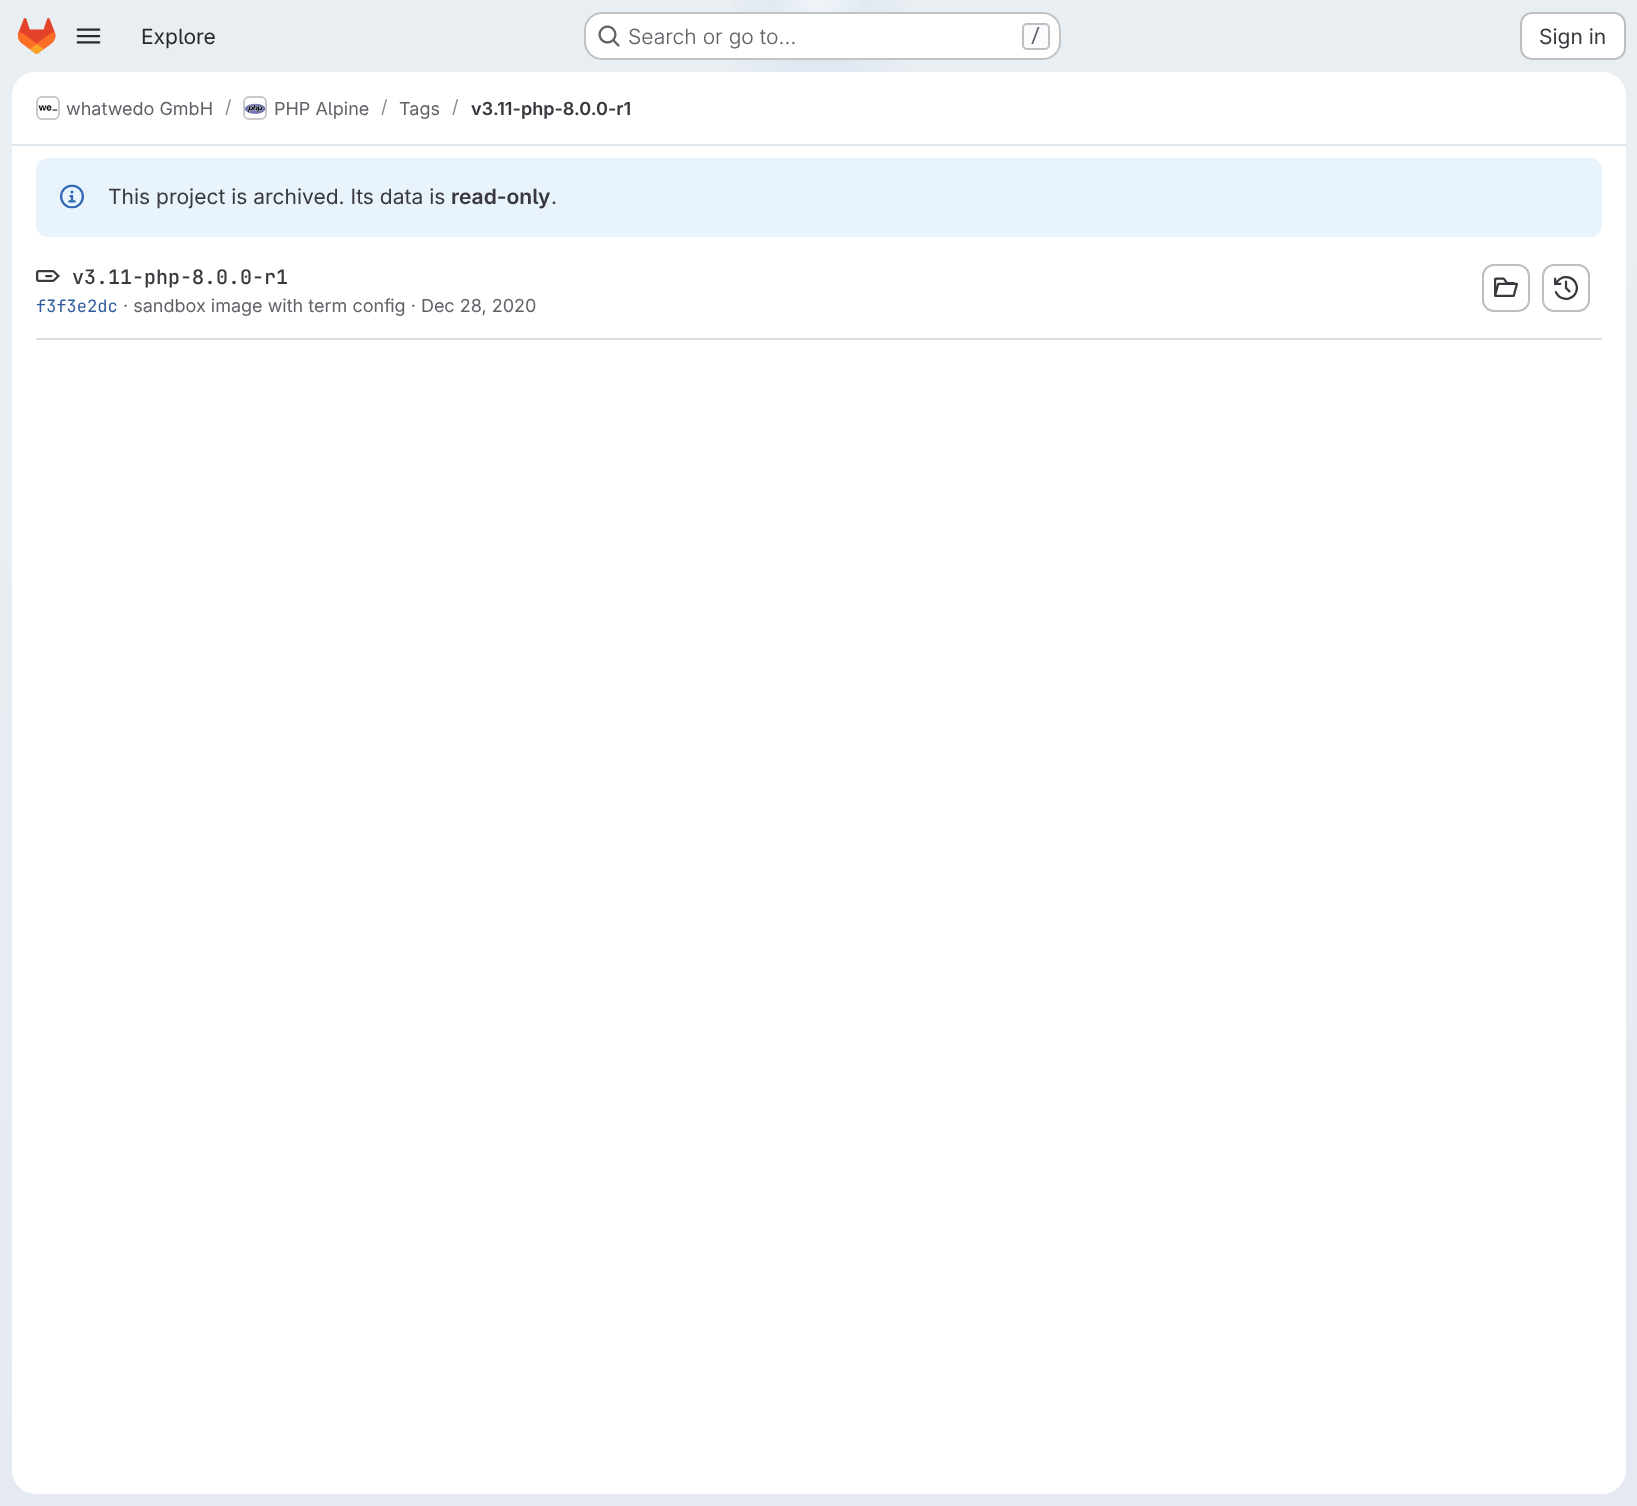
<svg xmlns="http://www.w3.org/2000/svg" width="1637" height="1506">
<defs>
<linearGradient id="g1" gradientUnits="userSpaceOnUse" x1="972" y1="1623" x2="666" y2="-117"><stop offset="0" stop-color="#e4e9f2"/><stop offset="0.7" stop-color="#e9eef3"/></linearGradient>
<radialGradient id="g2" gradientUnits="userSpaceOnUse" cx="0" cy="0" r="1" gradientTransform="matrix(819 0 0 1506 819 0)"><stop offset="0" stop-color="#dee5f1"/><stop offset="0.13" stop-color="#dee5f1" stop-opacity="0"/></radialGradient>
<radialGradient id="g3" gradientUnits="userSpaceOnUse" cx="0" cy="0" r="1" gradientTransform="matrix(819 0 0 1506 819 0)"><stop offset="0" stop-color="#dee7f1"/><stop offset="0.09" stop-color="#dee7f1" stop-opacity="0"/></radialGradient>
<radialGradient id="g4" gradientUnits="userSpaceOnUse" cx="819" cy="0" r="1714"><stop offset="0" stop-color="#fff" stop-opacity="0.6"/><stop offset="0.03" stop-color="#fff" stop-opacity="0"/></radialGradient>
</defs>
<rect width="100%" height="100%" fill="#fff"/>
<rect width="1637" height="1506" fill="url(#g1)"/>
<rect x="732" width="174" height="72" fill="url(#g2)"/>
<rect x="772" y="1" width="94" height="71" fill="url(#g3)"/>
<rect x="775" width="88" height="12" fill="url(#g4)"/>
<image x="18" y="18" width="38" height="36" href="media/1.png"/>
<image x="76" y="28" width="25" height="16" href="media/2.png"/>
<text x="141" y="44" style="font-family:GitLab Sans;font-size:21px;fill:#28272d">Explore</text>
<rect x="584" y="12" width="477" height="48" rx="18" fill="#fff"/>
<rect x="585" y="13" width="475" height="46" rx="17" fill="none" stroke="#0505063d" stroke-width="2"/>
<image x="598" y="25" width="22" height="22" href="media/3.png"/>
<text x="628" y="44" style="font-family:GitLab Sans;font-size:21px;font-weight:300;fill:#626168">Search or go to…</text>
<rect x="1023" y="24" width="26" height="25" rx="4" fill="#fbfafd" stroke="#bfbfc3" stroke-width="2"/>
<text x="1030" y="42" style="font-family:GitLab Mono;font-size:18px;font-weight:500;fill:#626168">/</text>
<rect x="1521" y="13" width="104" height="46" rx="11" fill="#fff" stroke="#bfbfc3" stroke-width="2"/>
<text x="1539" y="44" style="font-family:GitLab Sans;font-size:21px;fill:#3a383f">Sign in</text>
<rect x="12" y="72" width="1614" height="1422" rx="24" fill="#fff"/>
<path d="M36 72h1566c13.5 0 24 10.5 24 24v50h-1614v-50c0-13.5 10.5-24 24-24z" fill="#fff"/>
<rect x="12" y="144" width="1614" height="2" fill="#dfe6ec"/>
<rect x="37" y="97" width="22" height="22" rx="5" fill="none" stroke="#dcdcde" stroke-width="2"/>
<image x="38" y="105" width="20" height="6" href="media/4.png"/>
<rect x="37" y="97" width="22" height="22" rx="5" fill="none" stroke="#05050614" stroke-width="2"/>
<text x="66" y="115" style="font-family:GitLab Sans;font-size:18px;fill:#626168">whatwedo GmbH</text>
<text x="225" y="113" style="font-family:GitLab Sans;font-size:18px;fill:#89888d">/</text>
<rect x="244" y="97" width="22" height="22" rx="5" fill="none" stroke="#dcdcde" stroke-width="2"/>
<image x="244" y="103" width="22" height="11" href="media/5.png"/>
<rect x="244" y="97" width="22" height="22" rx="5" fill="none" stroke="#05050614" stroke-width="2"/>
<text x="274" y="115" style="font-family:GitLab Sans;font-size:18px;fill:#626168">PHP Alpine</text>
<text x="381" y="113" style="font-family:GitLab Sans;font-size:18px;fill:#89888d">/</text>
<text x="399" y="115" style="font-family:GitLab Sans;font-size:18px;fill:#626168">Tags</text>
<text x="452" y="113" style="font-family:GitLab Sans;font-size:18px;fill:#89888d">/</text>
<text x="471" y="115" style="font-family:GitLab Sans;font-size:18px;font-weight:600;fill:#3a383f">v3.11-php-8.0.0-r1</text>
<rect x="36" y="158" width="1566" height="79" rx="12" fill="#e9f3fc"/>
<image x="60" y="184" width="24" height="25" href="media/6.png"/>
<text x="108" y="204" style="font-family:GitLab Sans;font-size:21px;fill:#3a383f">This project is archived. Its data is</text>
<text x="451" y="204" style="font-family:GitLab Sans;font-size:21px;font-weight:600;fill:#3a383f">read-only</text>
<text x="551" y="204" style="font-family:GitLab Sans;font-size:21px;fill:#3a383f">.</text>
<rect x="36" y="338" width="1566" height="2" fill="#dcdcde"/>
<image x="36" y="270" width="24" height="12" href="media/7.png"/>
<text x="72" y="284" style="font-family:GitLab Mono;font-size:20px;font-weight:600;fill:#3a383f">v3.11-php-8.0.0-r1</text>
<text x="36" y="312" style="font-family:GitLab Mono;font-size:17px;fill:#2f5ca0">f3f3e2dc</text>
<text x="123" y="312" style="font-family:GitLab Sans;font-size:18px;fill:#626168">· sandbox image with term config · Dec 28, 2020</text>
<rect x="1483" y="265" width="46" height="46" rx="11" fill="none" stroke="#bfbfc3" stroke-width="2"/>
<image x="1494" y="277" width="24" height="20" href="media/8.png"/>
<rect x="1543" y="265" width="46" height="46" rx="11" fill="none" stroke="#bfbfc3" stroke-width="2"/>
<image x="1554" y="276" width="24" height="24" href="media/9.png"/>
</svg>
